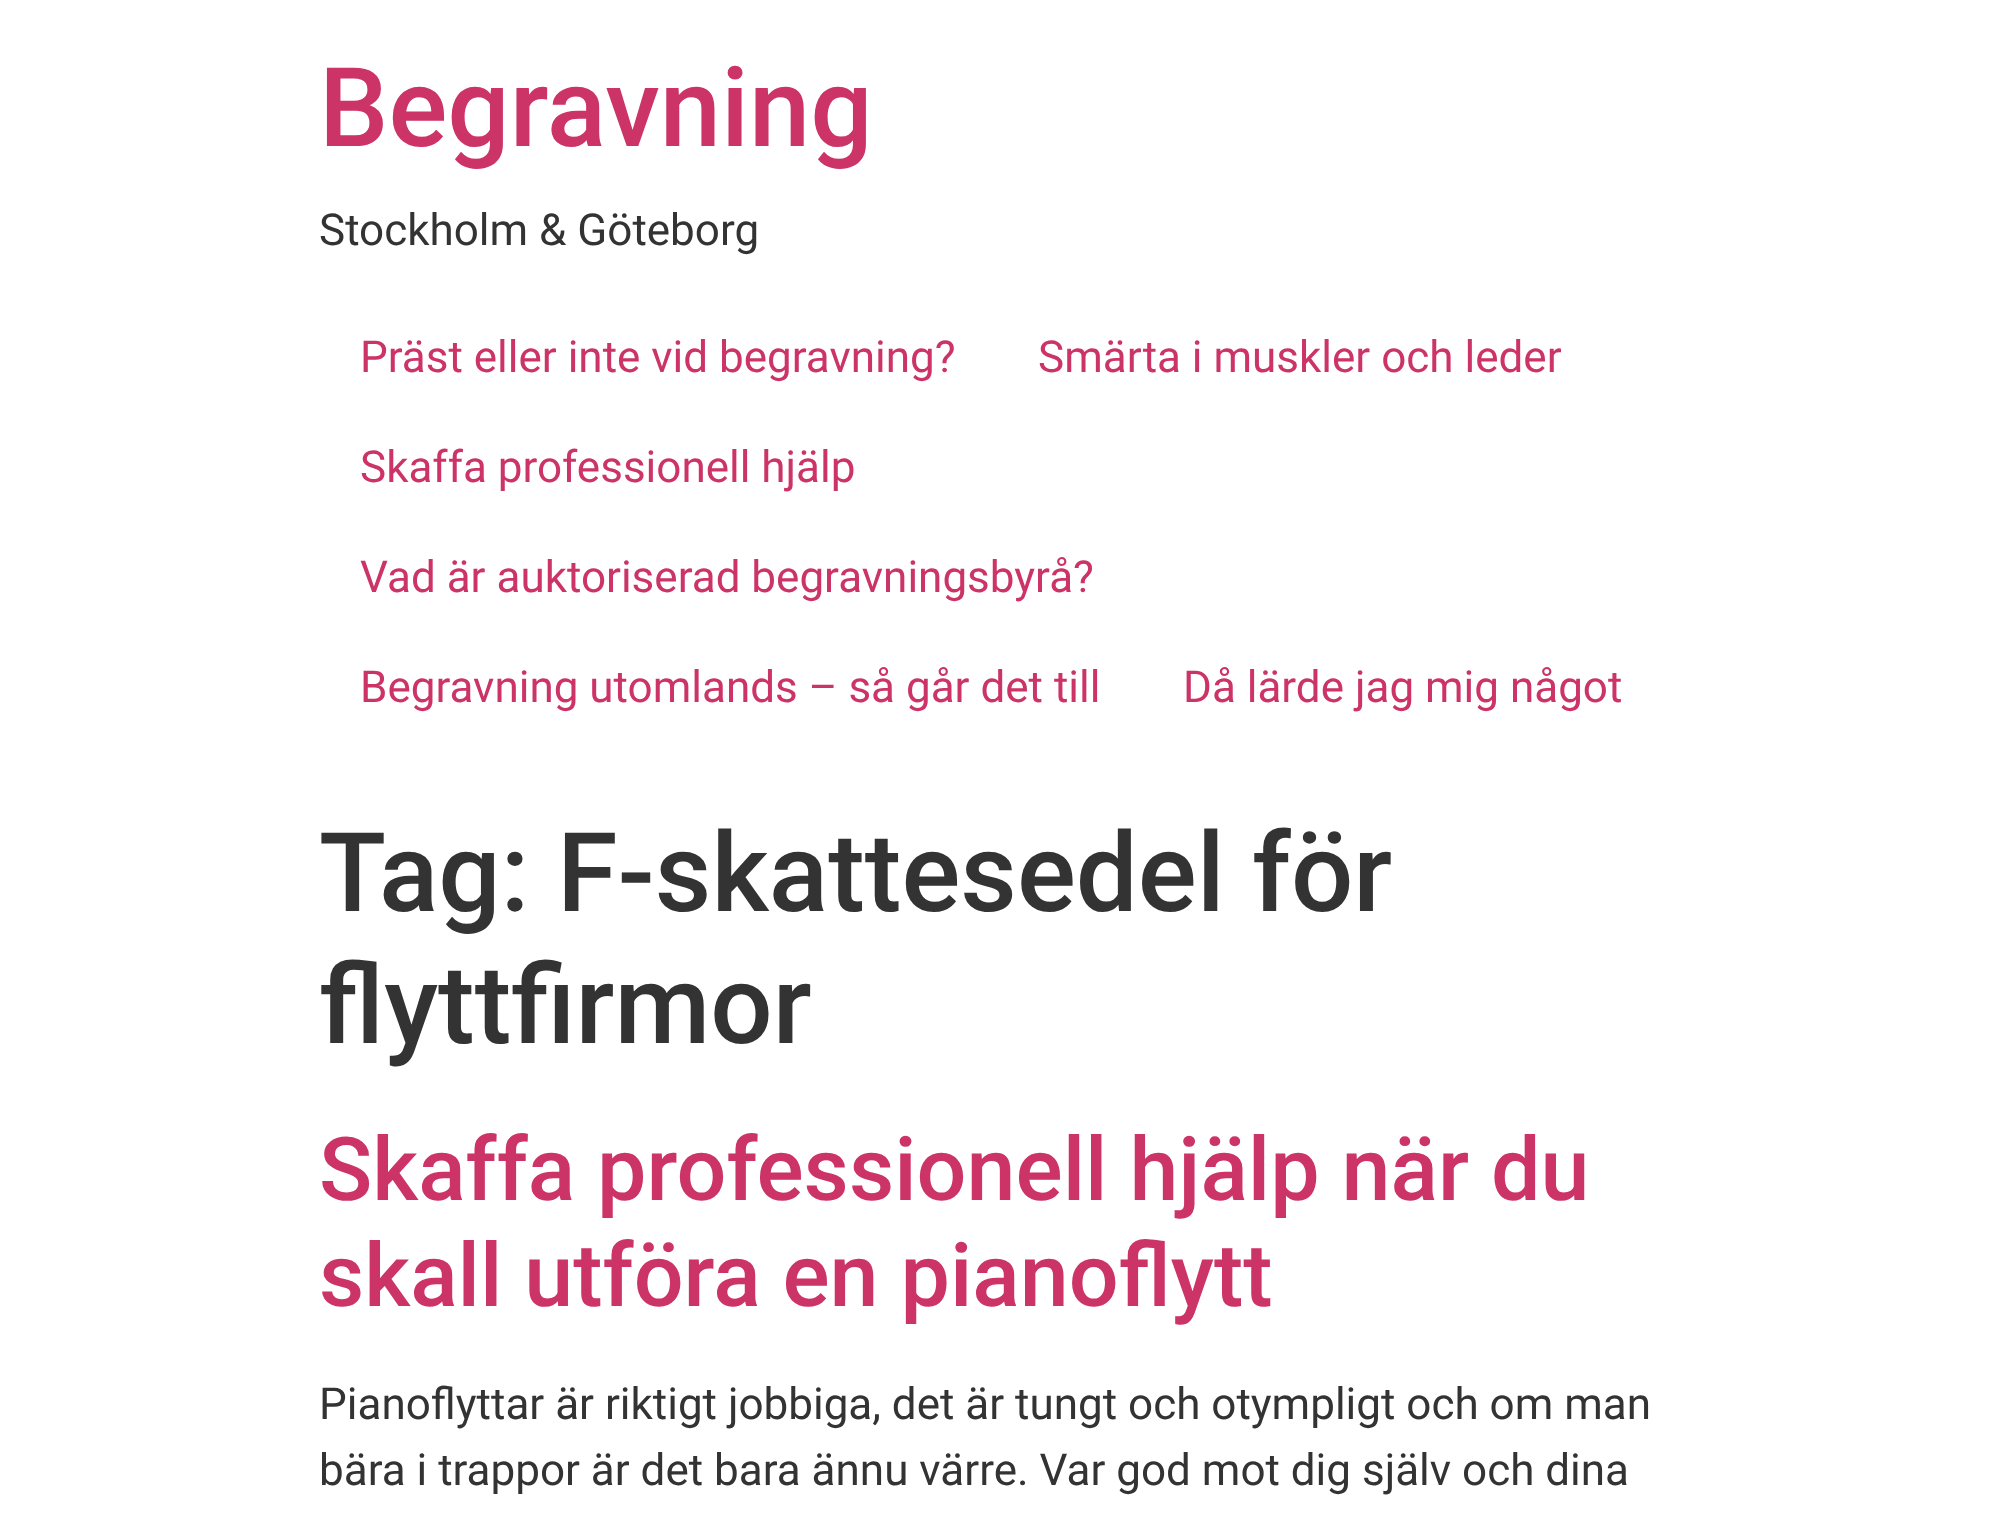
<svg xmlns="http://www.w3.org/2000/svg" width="2012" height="1523">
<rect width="100%" height="100%" fill="#fff"/>
<text x="319" y="146" style="font-family:Roboto;font-size:110px;font-weight:500;fill:#c36">Begravning</text>
<text x="319" y="245" style="font-family:Roboto;font-size:44px;fill:#333">Stockholm &amp; Göteborg</text>
<text x="360" y="372" style="font-family:Roboto;font-size:44px;fill:#c36">Präst eller inte vid begravning?</text>
<text x="1038" y="372" style="font-family:Roboto;font-size:44px;fill:#c36">Smärta i muskler och leder</text>
<text x="360" y="482" style="font-family:Roboto;font-size:44px;fill:#c36">Skaffa professionell hjälp</text>
<text x="360" y="592" style="font-family:Roboto;font-size:44px;fill:#c36">Vad är auktoriserad begravningsbyrå?</text>
<text x="360" y="702" style="font-family:Roboto;font-size:44px;fill:#c36">Begravning utomlands – så går det till</text>
<text x="1183" y="702" style="font-family:Roboto;font-size:44px;fill:#c36">Då lärde jag mig något</text>
<text x="319" y="911" style="font-family:Roboto;font-size:110px;font-weight:500;fill:#333">Tag: F-skattesedel för</text>
<text x="319" y="1043" style="font-family:Roboto;font-size:110px;font-weight:500;fill:#333">flyttfirmor</text>
<text x="319" y="1200" style="font-family:Roboto;font-size:88px;font-weight:500;fill:#c36">Skaffa professionell hjälp när du</text>
<text x="319" y="1306" style="font-family:Roboto;font-size:88px;font-weight:500;fill:#c36">skall utföra en pianoflytt</text>
<text x="319" y="1419" style="font-family:Roboto;font-size:44px;fill:#333">Pianoflyttar är riktigt jobbiga, det är tungt och otympligt och om man</text>
<text x="319" y="1485" style="font-family:Roboto;font-size:44px;fill:#333">bära i trappor är det bara ännu värre. Var god mot dig själv och dina</text>
</svg>
